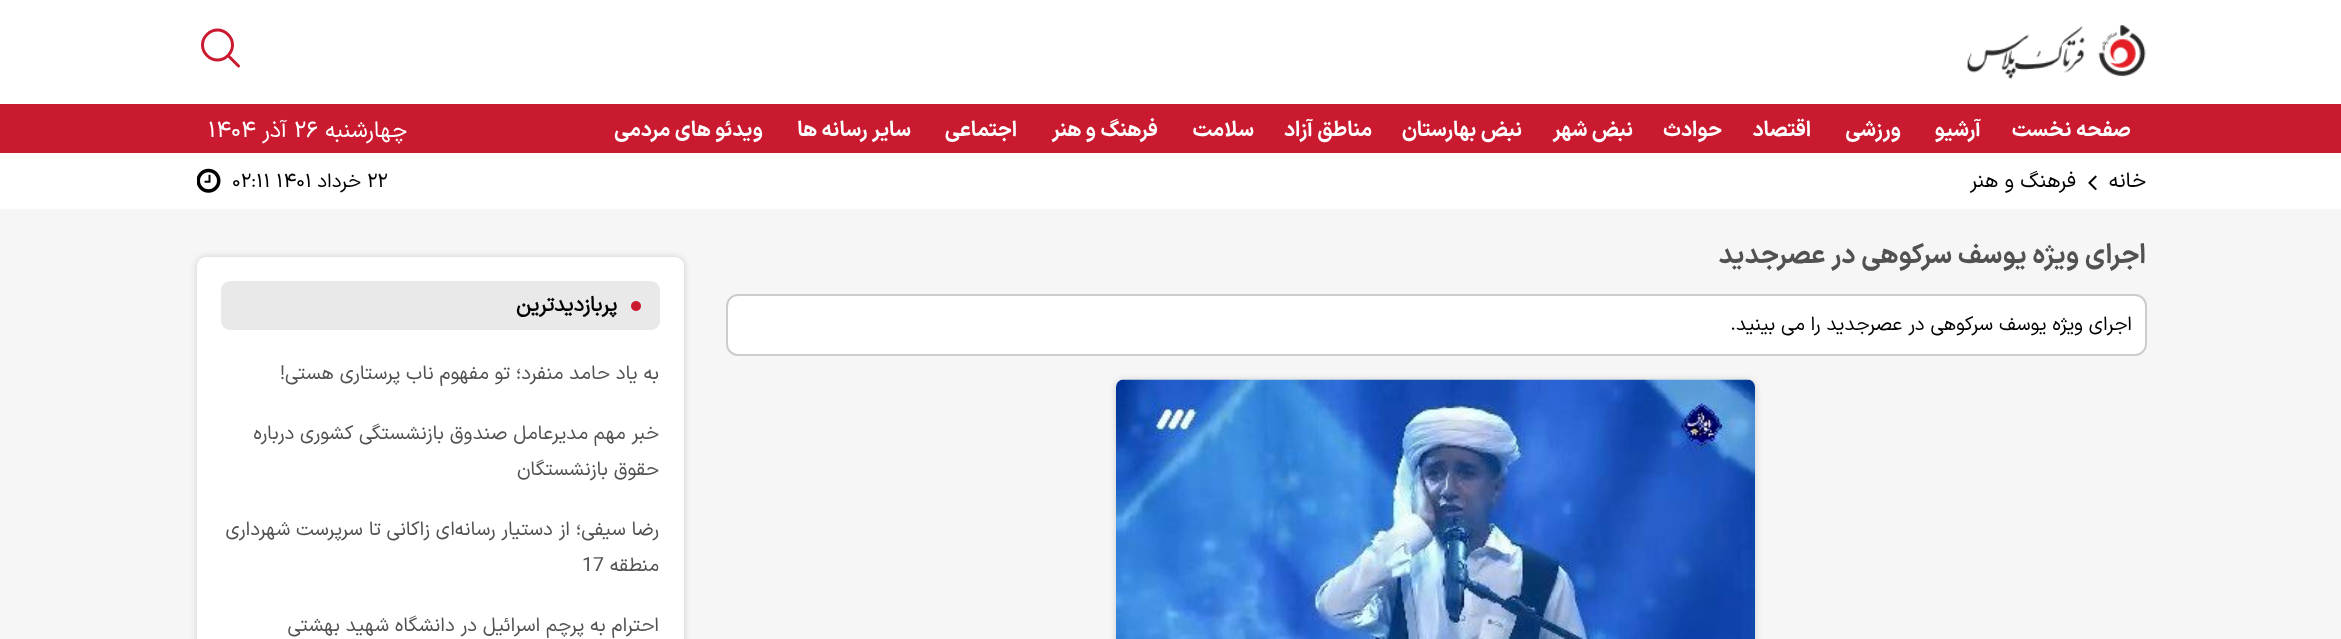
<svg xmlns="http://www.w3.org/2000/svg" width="2341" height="639">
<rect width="100%" height="100%" fill="#fff"/>
<image x="1966" y="25" width="180" height="54" href="media/1.png"/>
<path d="M238.5 66l-10.5-10.5m0 0c6-6 6-15 0-21c-6-6-15-6-21 0c-6 6-6 15 0 21c6 6 15 6 21 0z" fill="none" stroke="#ca1a2f" stroke-width="3" stroke-linecap="round" stroke-linejoin="round"/>
<rect y="104" width="2341" height="49" fill="#ca1a2f"/>
<text x="2131" y="136" style="font-family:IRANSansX;font-size:21px;font-weight:bold;direction:rtl;fill:#fff">صفحه نخست</text>
<text x="1981" y="136" style="font-family:IRANSansX;font-size:21px;font-weight:bold;direction:rtl;fill:#fff">آرشیو</text>
<text x="1901" y="136" style="font-family:IRANSansX;font-size:21px;font-weight:bold;direction:rtl;fill:#fff">ورزشی</text>
<text x="1811" y="136" style="font-family:IRANSansX;font-size:21px;font-weight:bold;direction:rtl;fill:#fff">اقتصاد</text>
<text x="1722" y="136" style="font-family:IRANSansX;font-size:21px;font-weight:bold;direction:rtl;fill:#fff">حوادث</text>
<text x="1633" y="136" style="font-family:IRANSansX;font-size:21px;font-weight:bold;direction:rtl;fill:#fff">نبض شهر</text>
<text x="1522" y="136" style="font-family:IRANSansX;font-size:21px;font-weight:bold;direction:rtl;fill:#fff">نبض بهارستان</text>
<text x="1372" y="136" style="font-family:IRANSansX;font-size:21px;font-weight:bold;direction:rtl;fill:#fff">مناطق آزاد</text>
<text x="1254" y="136" style="font-family:IRANSansX;font-size:21px;font-weight:bold;direction:rtl;fill:#fff">سلامت</text>
<text x="1158" y="136" style="font-family:IRANSansX;font-size:21px;font-weight:bold;direction:rtl;fill:#fff">فرهنگ و هنر</text>
<text x="1017" y="136" style="font-family:IRANSansX;font-size:21px;font-weight:bold;direction:rtl;fill:#fff">اجتماعی</text>
<text x="911" y="136" style="font-family:IRANSansX;font-size:21px;font-weight:bold;direction:rtl;fill:#fff">سایر رسانه ها</text>
<text x="763" y="136" style="font-family:IRANSansX;font-size:21px;font-weight:bold;direction:rtl;fill:#fff">ویدئو های مردمی</text>
<text x="407" y="137" style="font-family:IRANSansX;font-size:22.5px;direction:rtl;fill:#fff">چهارشنبه</text>
<text x="294" y="137" style="font-family:IRANSansX;font-size:22.5px;fill:#fff">۲۶</text>
<text x="287" y="137" style="font-family:IRANSansX;font-size:22.5px;direction:rtl;fill:#fff">آذر</text>
<text x="208" y="137" style="font-family:IRANSansX;font-size:22.5px;fill:#fff">۱۴۰۴</text>
<text x="2146" y="187" style="font-family:IRANSansX;font-size:21px;direction:rtl;fill:#000">خانه</text>
<image x="2088" y="175" width="9" height="16" href="media/2.png"/>
<text x="2076" y="187" style="font-family:IRANSansX;font-size:21px;direction:rtl;fill:#000">فرهنگ و هنر</text>
<text x="367" y="187" style="font-family:IRANSansX;font-size:19.5px;fill:#000">۲۲</text>
<text x="361" y="187" style="font-family:IRANSansX;font-size:19.5px;direction:rtl;fill:#000">خرداد</text>
<text x="232" y="187" style="font-family:IRANSansX;font-size:19.5px;fill:#000">۰۲:۱۱ ۱۴۰۱</text>
<image x="197" y="168" width="24" height="25" href="media/3.png"/>
<rect y="209" width="2341" height="430" fill="#f6f6f6"/>
<text x="2146" y="263" style="font-family:IRANSansX;font-size:27px;font-weight:bold;direction:rtl;fill:#515151">اجرای ویژه یوسف سرکوهی در عصرجدید</text>
<rect x="727" y="295" width="1419" height="60" rx="11" fill="#fff" stroke="#ccc" stroke-width="2"/>
<text x="2132" y="330" style="font-family:IRANSansX;font-size:19.5px;direction:rtl;fill:#000">اجرای ویژه یوسف سرکوهی در عصرجدید را می بینید.</text>
<rect x="1116" y="380" width="639" height="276" rx="8" fill="#ccc" filter="blur(3px)"/>
<image x="1116" y="379" width="639" height="260" href="media/4.png"/>
<rect x="197" y="257" width="487" height="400" rx="9" fill="#ccc" filter="blur(3px)"/>
<rect x="197" y="257" width="487" height="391" rx="9" fill="#fff"/>
<rect x="221" y="281" width="439" height="49" rx="9" fill="#e9e9e9"/>
<image x="631" y="301" width="10" height="10" href="media/5.png"/>
<text x="617" y="311" style="font-family:'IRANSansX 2';font-size:21px;font-weight:bold;direction:rtl;fill:#000">پربازدیدترین</text>
<text x="659" y="379" style="font-family:IRANSansX;font-size:19.5px;direction:rtl;fill:#515151">به یاد حامد منفرد؛ تو مفهوم ناب پرستاری هستی!</text>
<text x="659" y="439" style="font-family:IRANSansX;font-size:19.5px;direction:rtl;fill:#515151">خبر مهم مدیرعامل صندوق بازنشستگی کشوری درباره</text>
<text x="659" y="475" style="font-family:IRANSansX;font-size:19.5px;direction:rtl;fill:#515151">حقوق بازنشستگان</text>
<text x="659" y="535" style="font-family:IRANSansX;font-size:19.5px;direction:rtl;fill:#515151">رضا سیفی؛ از دستیار رسانه‌ای زاکانی تا سرپرست شهرداری</text>
<text x="659" y="571" style="font-family:IRANSansX;font-size:19.5px;direction:rtl;fill:#515151">منطقه</text>
<text x="582" y="571" style="font-family:IRANSansX;font-size:19.5px;fill:#515151">17</text>
<text x="659" y="631" style="font-family:IRANSansX;font-size:19.5px;direction:rtl;fill:#515151">احترام به پرچم اسرائیل در دانشگاه شهید بهشتی</text>
</svg>
